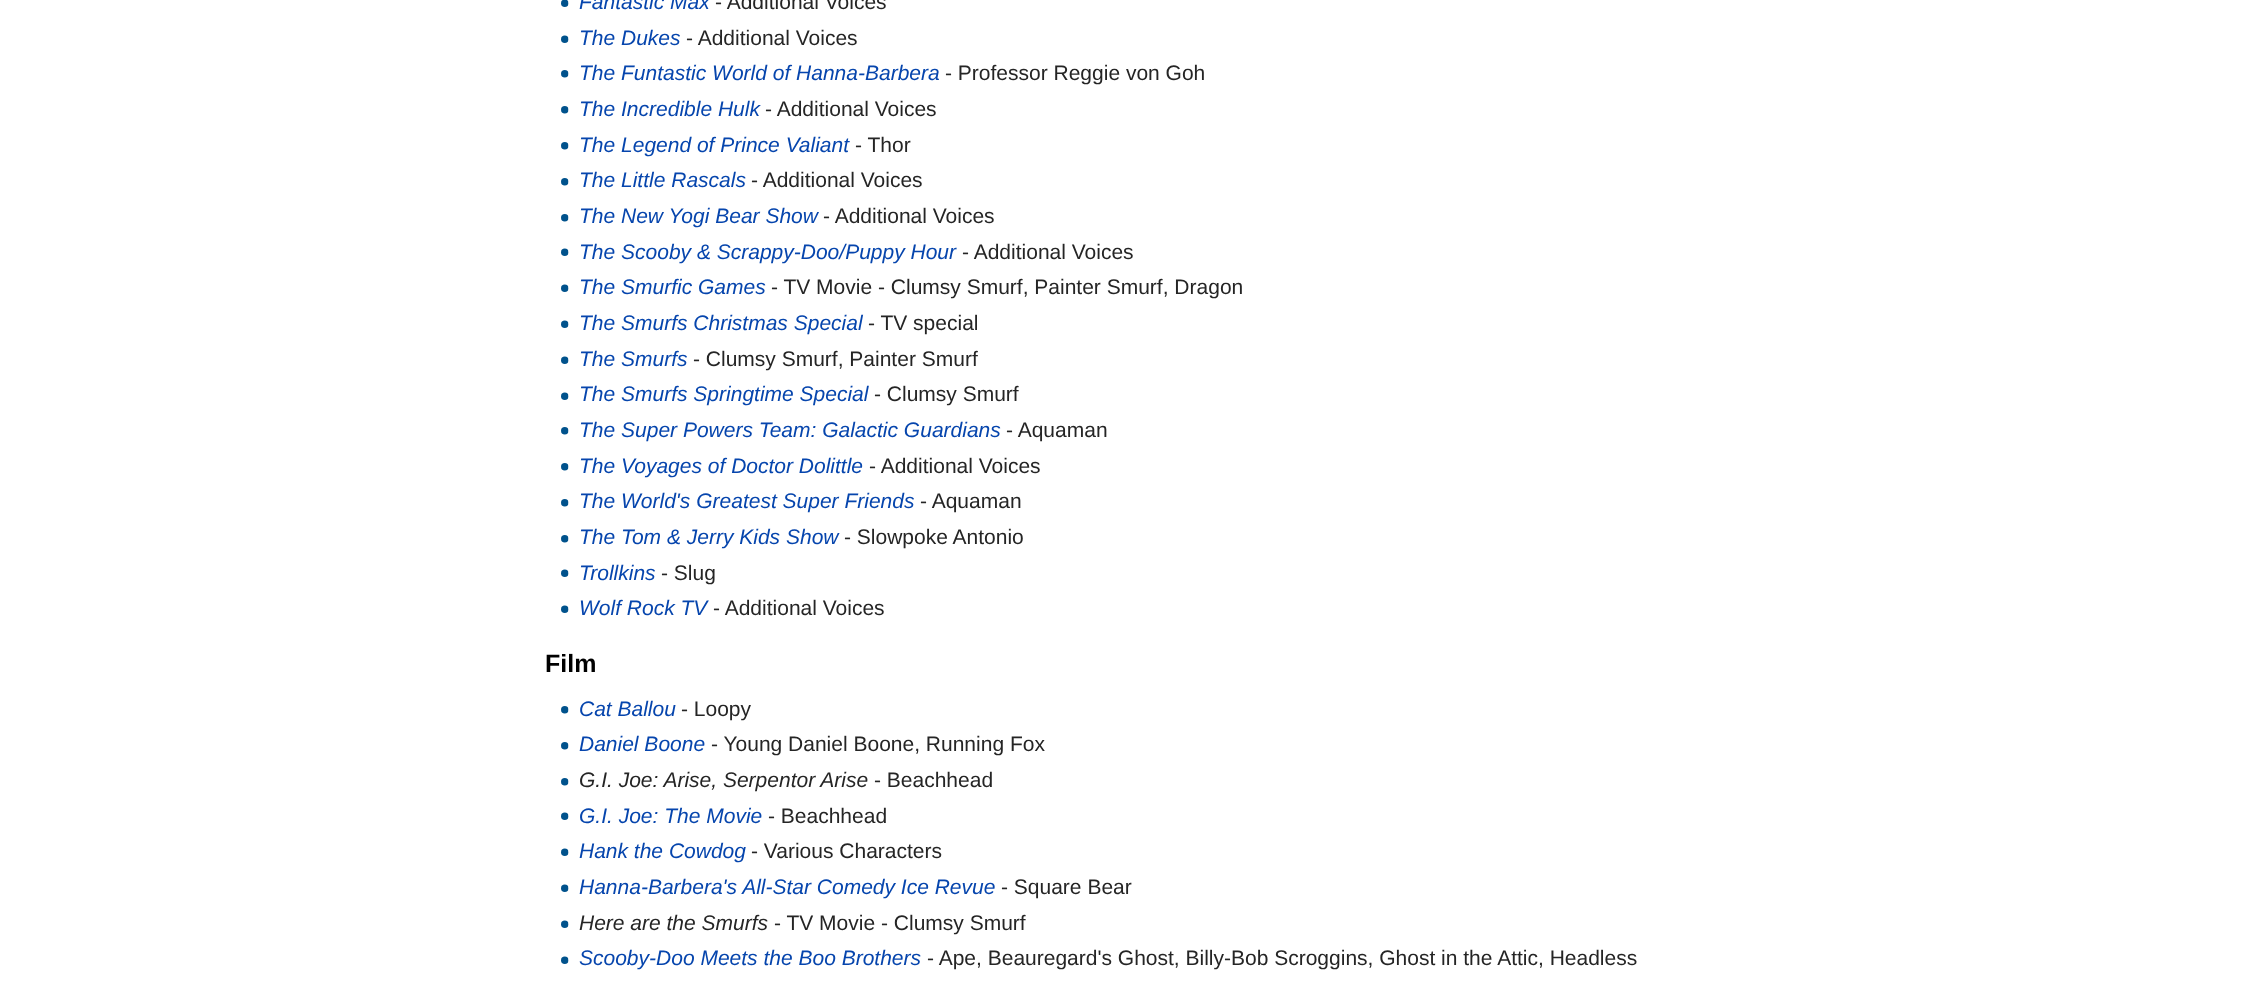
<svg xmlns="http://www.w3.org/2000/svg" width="2261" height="985">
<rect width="100%" height="100%" fill="#fff"/>
<image x="561" y="0" width="8" height="7" href="media/1.png"/>
<text x="579" y="9" style="font-family:Liberation Sans;font-size:21px;font-style:italic;fill:#0645ad">Fantastic Max</text>
<text x="715" y="9" style="font-family:Liberation Sans;font-size:21px;fill:#252525">- Additional Voices</text>
<image x="561" y="35" width="8" height="8" href="media/2.png"/>
<text x="579" y="45" style="font-family:Liberation Sans;font-size:21px;font-style:italic;fill:#0645ad">The Dukes</text>
<text x="686" y="45" style="font-family:Liberation Sans;font-size:21px;fill:#252525">- Additional Voices</text>
<image x="561" y="70" width="8" height="8" href="media/3.png"/>
<text x="579" y="80" style="font-family:Liberation Sans;font-size:21px;font-style:italic;fill:#0645ad">The Funtastic World of Hanna-Barbera</text>
<text x="945" y="80" style="font-family:Liberation Sans;font-size:21px;fill:#252525">- Professor Reggie von Goh</text>
<image x="561" y="106" width="8" height="8" href="media/3.png"/>
<text x="579" y="116" style="font-family:Liberation Sans;font-size:21px;font-style:italic;fill:#0645ad">The Incredible Hulk</text>
<text x="765" y="116" style="font-family:Liberation Sans;font-size:21px;fill:#252525">- Additional Voices</text>
<image x="561" y="142" width="8" height="8" href="media/3.png"/>
<text x="579" y="152" style="font-family:Liberation Sans;font-size:21px;font-style:italic;fill:#0645ad">The Legend of Prince Valiant</text>
<text x="855" y="152" style="font-family:Liberation Sans;font-size:21px;fill:#252525">- Thor</text>
<image x="561" y="178" width="8" height="8" href="media/3.png"/>
<text x="579" y="187" style="font-family:Liberation Sans;font-size:21px;font-style:italic;fill:#0645ad">The Little Rascals</text>
<text x="751" y="187" style="font-family:Liberation Sans;font-size:21px;fill:#252525">- Additional Voices</text>
<image x="561" y="214" width="8" height="8" href="media/3.png"/>
<text x="579" y="223" style="font-family:Liberation Sans;font-size:21px;font-style:italic;fill:#0645ad">The New Yogi Bear Show</text>
<text x="823" y="223" style="font-family:Liberation Sans;font-size:21px;fill:#252525">- Additional Voices</text>
<image x="561" y="248" width="8" height="8" href="media/2.png"/>
<text x="579" y="259" style="font-family:Liberation Sans;font-size:21px;font-style:italic;fill:#0645ad">The Scooby &amp; Scrappy-Doo/Puppy Hour</text>
<text x="962" y="259" style="font-family:Liberation Sans;font-size:21px;fill:#252525">- Additional Voices</text>
<image x="561" y="284" width="8" height="8" href="media/2.png"/>
<text x="579" y="294" style="font-family:Liberation Sans;font-size:21px;font-style:italic;fill:#0645ad">The Smurfic Games</text>
<text x="771" y="294" style="font-family:Liberation Sans;font-size:21px;fill:#252525">- TV Movie - Clumsy Smurf, Painter Smurf, Dragon</text>
<image x="561" y="320" width="8" height="8" href="media/2.png"/>
<text x="579" y="330" style="font-family:Liberation Sans;font-size:21px;font-style:italic;fill:#0645ad">The Smurfs Christmas Special</text>
<text x="868" y="330" style="font-family:Liberation Sans;font-size:21px;fill:#252525">- TV special</text>
<image x="561" y="356" width="8" height="8" href="media/2.png"/>
<text x="579" y="366" style="font-family:Liberation Sans;font-size:21px;font-style:italic;fill:#0645ad">The Smurfs</text>
<text x="693" y="366" style="font-family:Liberation Sans;font-size:21px;fill:#252525">- Clumsy Smurf, Painter Smurf</text>
<image x="561" y="392" width="8" height="8" href="media/2.png"/>
<text x="579" y="401" style="font-family:Liberation Sans;font-size:21px;font-style:italic;fill:#0645ad">The Smurfs Springtime Special</text>
<text x="874" y="401" style="font-family:Liberation Sans;font-size:21px;fill:#252525">- Clumsy Smurf</text>
<image x="561" y="427" width="8" height="8" href="media/3.png"/>
<text x="579" y="437" style="font-family:Liberation Sans;font-size:21px;font-style:italic;fill:#0645ad">The Super Powers Team: Galactic Guardians</text>
<text x="1006" y="437" style="font-family:Liberation Sans;font-size:21px;fill:#252525">- Aquaman</text>
<image x="561" y="463" width="8" height="8" href="media/3.png"/>
<text x="579" y="473" style="font-family:Liberation Sans;font-size:21px;font-style:italic;fill:#0645ad">The Voyages of Doctor Dolittle</text>
<text x="869" y="473" style="font-family:Liberation Sans;font-size:21px;fill:#252525">- Additional Voices</text>
<image x="561" y="499" width="8" height="8" href="media/3.png"/>
<text x="579" y="508" style="font-family:Liberation Sans;font-size:21px;font-style:italic;fill:#0645ad">The World's Greatest Super Friends</text>
<text x="920" y="508" style="font-family:Liberation Sans;font-size:21px;fill:#252525">- Aquaman</text>
<image x="561" y="535" width="8" height="8" href="media/3.png"/>
<text x="579" y="544" style="font-family:Liberation Sans;font-size:21px;font-style:italic;fill:#0645ad">The Tom &amp; Jerry Kids Show</text>
<text x="844" y="544" style="font-family:Liberation Sans;font-size:21px;fill:#252525">- Slowpoke Antonio</text>
<image x="561" y="569" width="8" height="8" href="media/2.png"/>
<text x="579" y="580" style="font-family:Liberation Sans;font-size:21px;font-style:italic;fill:#0645ad">Trollkins</text>
<text x="661" y="580" style="font-family:Liberation Sans;font-size:21px;fill:#252525">- Slug</text>
<image x="561" y="605" width="8" height="8" href="media/2.png"/>
<text x="579" y="615" style="font-family:Liberation Sans;font-size:21px;font-style:italic;fill:#0645ad">Wolf Rock TV</text>
<text x="713" y="615" style="font-family:Liberation Sans;font-size:21px;fill:#252525">- Additional Voices</text>
<text x="545" y="672" style="font-family:Liberation Sans;font-size:25px;font-weight:bold;fill:#000">Film</text>
<image x="561" y="706" width="8" height="8" href="media/3.png"/>
<text x="579" y="716" style="font-family:Liberation Sans;font-size:21px;font-style:italic;fill:#0645ad">Cat Ballou</text>
<text x="681" y="716" style="font-family:Liberation Sans;font-size:21px;fill:#252525">- Loopy</text>
<image x="561" y="742" width="8" height="8" href="media/3.png"/>
<text x="579" y="751" style="font-family:Liberation Sans;font-size:21px;font-style:italic;fill:#0645ad">Daniel Boone</text>
<text x="711" y="751" style="font-family:Liberation Sans;font-size:21px;fill:#252525">- Young Daniel Boone, Running Fox</text>
<image x="561" y="778" width="8" height="8" href="media/3.png"/>
<text x="579" y="787" style="font-family:Liberation Sans;font-size:21px;font-style:italic;fill:#252525">G.I. Joe: Arise, Serpentor Arise</text>
<text x="874" y="787" style="font-family:Liberation Sans;font-size:21px;fill:#252525">- Beachhead</text>
<image x="561" y="812" width="8" height="8" href="media/2.png"/>
<text x="579" y="823" style="font-family:Liberation Sans;font-size:21px;font-style:italic;fill:#0645ad">G.I. Joe: The Movie</text>
<text x="768" y="823" style="font-family:Liberation Sans;font-size:21px;fill:#252525">- Beachhead</text>
<image x="561" y="848" width="8" height="8" href="media/2.png"/>
<text x="579" y="858" style="font-family:Liberation Sans;font-size:21px;font-style:italic;fill:#0645ad">Hank the Cowdog</text>
<text x="751" y="858" style="font-family:Liberation Sans;font-size:21px;fill:#252525">- Various Characters</text>
<image x="561" y="884" width="8" height="8" href="media/2.png"/>
<text x="579" y="894" style="font-family:Liberation Sans;font-size:21px;font-style:italic;fill:#0645ad">Hanna-Barbera's All-Star Comedy Ice Revue</text>
<text x="1001" y="894" style="font-family:Liberation Sans;font-size:21px;fill:#252525">- Square Bear</text>
<image x="561" y="920" width="8" height="8" href="media/2.png"/>
<text x="579" y="930" style="font-family:Liberation Sans;font-size:21px;font-style:italic;fill:#252525">Here are the Smurfs</text>
<text x="774" y="930" style="font-family:Liberation Sans;font-size:21px;fill:#252525">- TV Movie - Clumsy Smurf</text>
<image x="561" y="956" width="8" height="8" href="media/2.png"/>
<text x="579" y="965" style="font-family:Liberation Sans;font-size:21px;font-style:italic;fill:#0645ad">Scooby-Doo Meets the Boo Brothers</text>
<text x="927" y="965" style="font-family:Liberation Sans;font-size:21px;fill:#252525">- Ape, Beauregard's Ghost, Billy-Bob Scroggins, Ghost in the Attic, Headless</text>
</svg>
